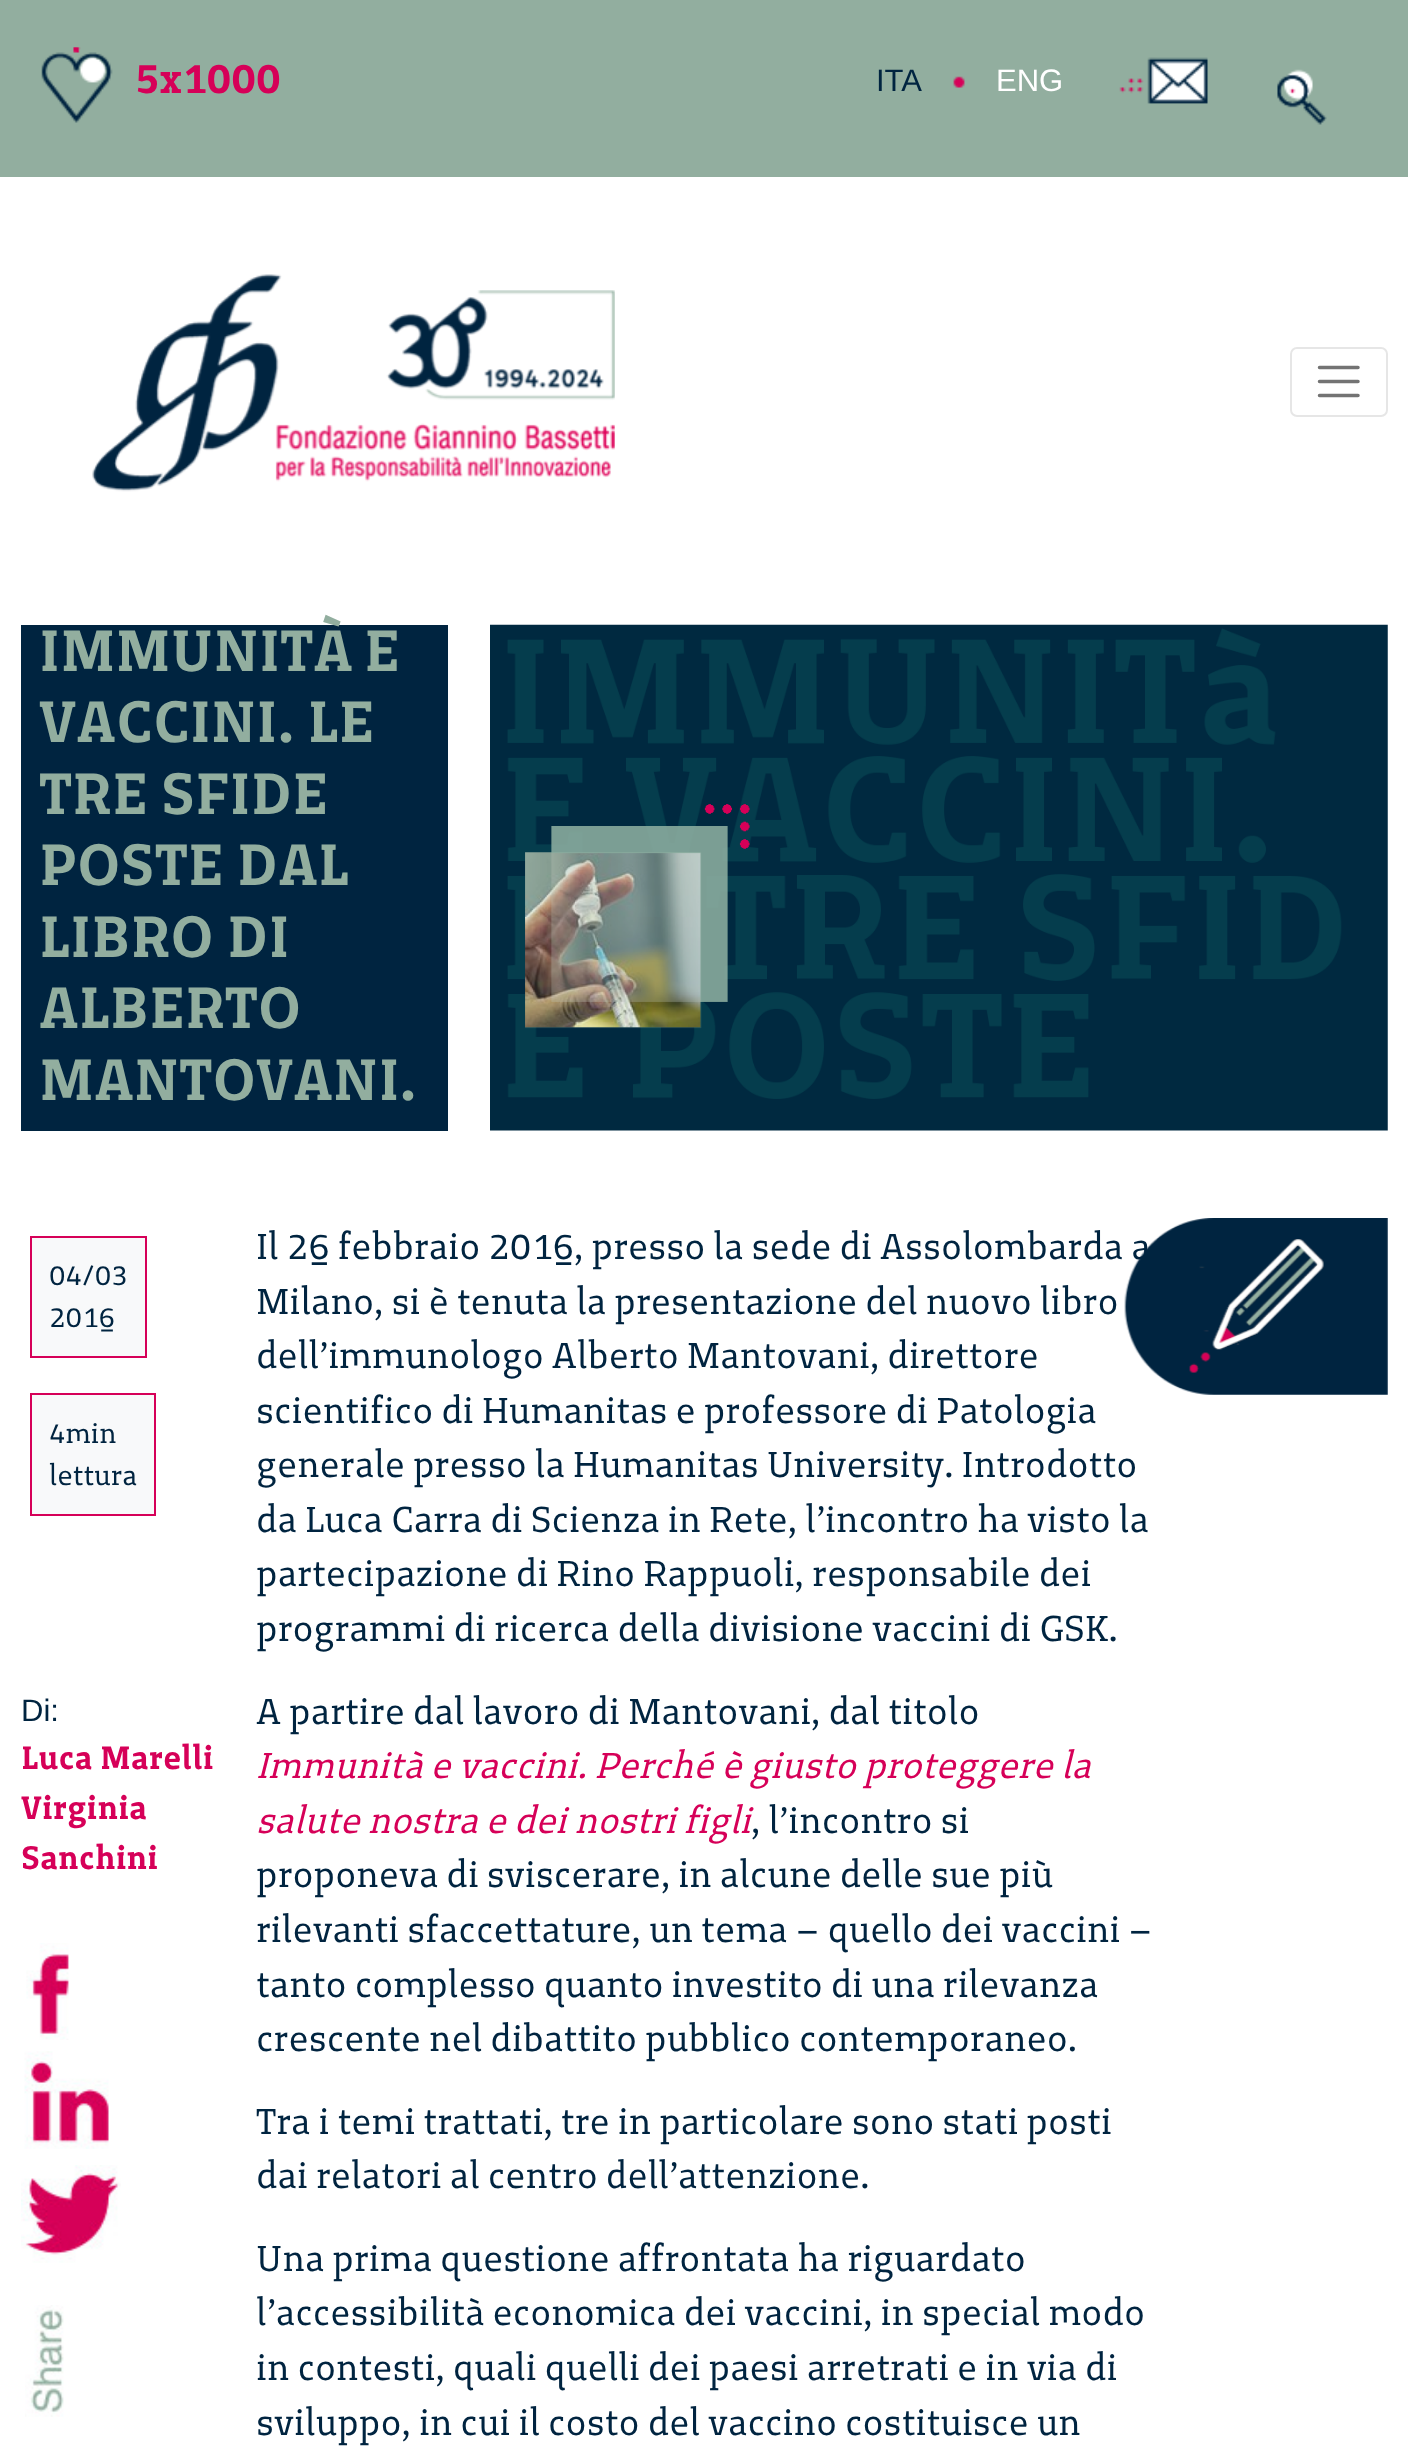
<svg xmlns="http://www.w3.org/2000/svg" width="1408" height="2449">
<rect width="100%" height="100%" fill="#fff"/>
<rect width="1408" height="177" fill="#92ae9f"/>
<image x="41" y="47" width="72" height="76" href="media/1.png"/>
<text x="135" y="93" style="font-family:'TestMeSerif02';font-size:42px;font-weight:bold;fill:#d60058">5x1000</text>
<text x="876" y="91" style="font-family:Liberation Sans;font-size:31px;fill:#002440">ITA</text>
<image x="953" y="76" width="12" height="12" href="media/2.png"/>
<text x="996" y="91" style="font-family:Liberation Sans;font-size:31px;fill:#fff">ENG</text>
<image x="1119" y="57" width="89" height="47" href="media/3.png"/>
<image x="1277" y="69" width="50" height="56" href="media/4.png"/>
<image x="92" y="274" width="523" height="218" href="media/5.png"/>
<rect x="1291" y="348" width="96" height="68" rx="6" fill="none" stroke="#e6e6e6" stroke-width="2"/>
<path d="M1319.5 367.5h38.5m-38.5 14h38.5m-38.5 14h38.5" fill="none" stroke="#737373" stroke-width="3.5" stroke-linecap="round"/>
<rect x="21" y="625" width="427" height="506" fill="#002440"/>
<text x="39" y="671" style="font-family:'TestMeSerif02';font-size:59.5px;font-weight:bold;fill:#92ae9f">IMMUNITÀ E</text>
<text x="39" y="742" style="font-family:'TestMeSerif02';font-size:59.5px;font-weight:bold;fill:#92ae9f">VACCINI. LE</text>
<text x="39" y="814" style="font-family:'TestMeSerif02';font-size:59.5px;font-weight:bold;fill:#92ae9f">TRE SFIDE</text>
<text x="39" y="885" style="font-family:'TestMeSerif02';font-size:59.5px;font-weight:bold;fill:#92ae9f">POSTE DAL</text>
<text x="39" y="957" style="font-family:'TestMeSerif02';font-size:59.5px;font-weight:bold;fill:#92ae9f">LIBRO DI</text>
<text x="39" y="1028" style="font-family:'TestMeSerif02';font-size:59.5px;font-weight:bold;fill:#92ae9f">ALBERTO</text>
<text x="39" y="1100" style="font-family:'TestMeSerif02';font-size:59.5px;font-weight:bold;fill:#92ae9f">MANTOVANI.</text>
<image x="490" y="624" width="898" height="507" href="media/6.png"/>
<rect x="31" y="1237" width="115" height="120" fill="#f8f9fa" stroke="#d60058" stroke-width="2"/>
<text x="49" y="1285" style="font-family:'TestMeSerif02';font-size:28px;fill:#002440">04/03</text>
<text x="49" y="1327" style="font-family:'TestMeSerif02';font-size:28px;fill:#002440">2016</text>
<rect x="31" y="1394" width="124" height="121" fill="#f8f9fa" stroke="#d60058" stroke-width="2"/>
<text x="49" y="1443" style="font-family:'TestMeSerif02';font-size:28px;fill:#002440">4min</text>
<text x="49" y="1485" style="font-family:'TestMeSerif02';font-size:28px;fill:#002440">lettura</text>
<text x="21" y="1721" style="font-family:Liberation Sans;font-size:31px;fill:#002440">Di:</text>
<text x="21" y="1769" style="font-family:'TestMeSerif02';font-size:33.25px;font-weight:bold;fill:#d60058">Luca Marelli</text>
<text x="21" y="1819" style="font-family:'TestMeSerif02';font-size:33.25px;font-weight:bold;fill:#d60058">Virginia</text>
<text x="21" y="1869" style="font-family:'TestMeSerif02';font-size:33.25px;font-weight:bold;fill:#d60058">Sanchini</text>
<image x="26" y="1943" width="43" height="97" href="media/7.png"/>
<image x="24" y="2051" width="85" height="98" href="media/8.png"/>
<image x="21" y="2165" width="100" height="98" href="media/9.png"/>
<image x="25" y="2305" width="39" height="112" href="media/10.png"/>
<text x="256" y="1259" style="font-family:'TestMeSerif02';font-size:36.4px;fill:#002440">Il 26 febbraio 2016, presso la sede di Assolombarda a</text>
<text x="256" y="1314" style="font-family:'TestMeSerif02';font-size:36.4px;fill:#002440">Milano, si è tenuta la presentazione del nuovo libro</text>
<text x="256" y="1368" style="font-family:'TestMeSerif02';font-size:36.4px;fill:#002440">dell’immunologo Alberto Mantovani, direttore</text>
<text x="256" y="1423" style="font-family:'TestMeSerif02';font-size:36.4px;fill:#002440">scientifico di Humanitas e professore di Patologia</text>
<text x="256" y="1477" style="font-family:'TestMeSerif02';font-size:36.4px;fill:#002440">generale presso la Humanitas University. Introdotto</text>
<text x="256" y="1532" style="font-family:'TestMeSerif02';font-size:36.4px;fill:#002440">da Luca Carra di Scienza in Rete, l’incontro ha visto la</text>
<text x="256" y="1586" style="font-family:'TestMeSerif02';font-size:36.4px;fill:#002440">partecipazione di Rino Rappuoli, responsabile dei</text>
<text x="256" y="1641" style="font-family:'TestMeSerif02';font-size:36.4px;fill:#002440">programmi di ricerca della divisione vaccini di GSK.</text>
<text x="256" y="1724" style="font-family:'TestMeSerif02';font-size:36.4px;fill:#002440">A partire dal lavoro di Mantovani, dal titolo</text>
<text x="256" y="1778" style="font-family:'TestMeSerif02';font-size:36.4px;font-style:italic;fill:#d60058">Immunità e vaccini. Perché è giusto proteggere la</text>
<text x="256" y="1833" style="font-family:'TestMeSerif02';font-size:36.4px;font-style:italic;fill:#d60058">salute nostra e dei nostri figli</text>
<text x="751" y="1833" style="font-family:'TestMeSerif02';font-size:36.4px;fill:#002440">, l’incontro si</text>
<text x="256" y="1887" style="font-family:'TestMeSerif02';font-size:36.4px;fill:#002440">proponeva di sviscerare, in alcune delle sue più</text>
<text x="256" y="1942" style="font-family:'TestMeSerif02';font-size:36.4px;fill:#002440">rilevanti sfaccettature, un tema – quello dei vaccini –</text>
<text x="256" y="1997" style="font-family:'TestMeSerif02';font-size:36.4px;fill:#002440">tanto complesso quanto investito di una rilevanza</text>
<text x="256" y="2051" style="font-family:'TestMeSerif02';font-size:36.4px;fill:#002440">crescente nel dibattito pubblico contemporaneo.</text>
<text x="256" y="2134" style="font-family:'TestMeSerif02';font-size:36.4px;fill:#002440">Tra i temi trattati, tre in particolare sono stati posti</text>
<text x="256" y="2188" style="font-family:'TestMeSerif02';font-size:36.4px;fill:#002440">dai relatori al centro dell’attenzione.</text>
<text x="256" y="2271" style="font-family:'TestMeSerif02';font-size:36.4px;fill:#002440">Una prima questione affrontata ha riguardato</text>
<text x="256" y="2325" style="font-family:'TestMeSerif02';font-size:36.4px;fill:#002440">l’accessibilità economica dei vaccini, in special modo</text>
<text x="256" y="2380" style="font-family:'TestMeSerif02';font-size:36.4px;fill:#002440">in contesti, quali quelli dei paesi arretrati e in via di</text>
<text x="256" y="2435" style="font-family:'TestMeSerif02';font-size:36.4px;fill:#002440">sviluppo, in cui il costo del vaccino costituisce un</text>
<image x="1124" y="1218" width="264" height="177" href="media/11.png"/>
</svg>
